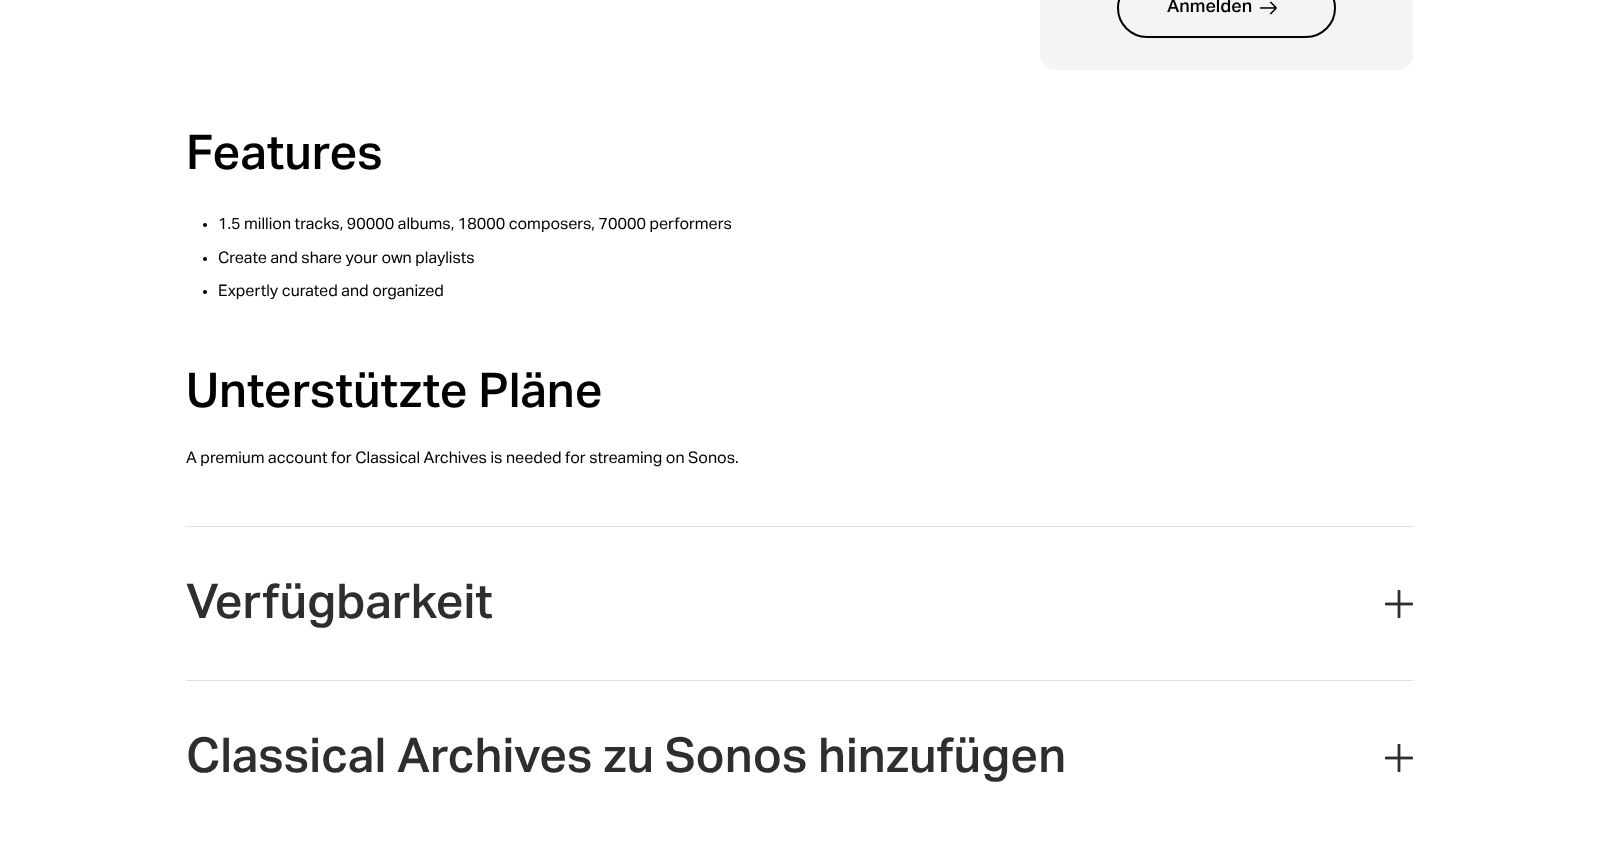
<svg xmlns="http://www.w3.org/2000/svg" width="1599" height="844">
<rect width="100%" height="100%" fill="#fff"/>
<rect x="1040" y="-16" width="373" height="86" rx="16" fill="#f4f4f4"/>
<rect x="1118" y="-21" width="217" height="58" rx="29" fill="none" stroke="#000" stroke-width="2"/>
<text x="1167" y="12" style="font-family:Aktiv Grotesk;font-size:18px;font-weight:500;fill:#000">Anmelden</text>
<image x="1260" y="1" width="17" height="14" href="media/1.png"/>
<text x="186" y="169" style="font-family:Aktiv Grotesk;font-size:48px;font-weight:500;fill:#000">Features</text>
<circle cx="205" cy="225" r="2" fill="#000"/>
<text x="218" y="229" style="font-family:Aktiv Grotesk;font-size:16px;fill:#000">1.5 million tracks, 90000 albums, 18000 composers, 70000 performers</text>
<circle cx="205" cy="259" r="2" fill="#000"/>
<text x="218" y="263" style="font-family:Aktiv Grotesk;font-size:16px;fill:#000">Create and share your own playlists</text>
<circle cx="205" cy="292" r="2" fill="#000"/>
<text x="218" y="296" style="font-family:Aktiv Grotesk;font-size:16px;fill:#000">Expertly curated and organized</text>
<text x="186" y="407" style="font-family:Aktiv Grotesk;font-size:48px;font-weight:500;fill:#000">Unterstützte Pläne</text>
<text x="186" y="463" style="font-family:Aktiv Grotesk;font-size:16px;fill:#000">A premium account for Classical Archives is needed for streaming on Sonos.</text>
<rect x="186" y="526" width="1227" height="1" fill="#e0e0e0"/>
<text x="186" y="618" style="font-family:Aktiv Grotesk;font-size:48px;font-weight:500;fill:#2e2e2e">Verfügbarkeit</text>
<image x="1385" y="590" width="28" height="28" href="media/2.png"/>
<rect x="186" y="680" width="1227" height="1" fill="#e0e0e0"/>
<text x="186" y="772" style="font-family:Aktiv Grotesk;font-size:48px;font-weight:500;fill:#2e2e2e">Classical Archives zu Sonos hinzufügen</text>
<image x="1385" y="744" width="28" height="28" href="media/2.png"/>
</svg>
